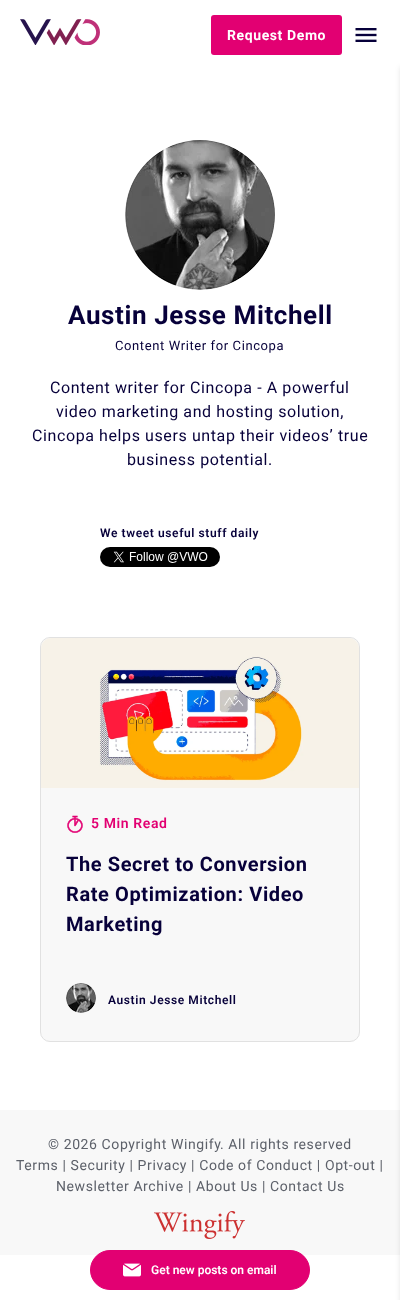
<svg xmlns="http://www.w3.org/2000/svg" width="400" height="1300">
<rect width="100%" height="100%" fill="#fff"/>
<image x="20" y="19" width="80" height="26" href="media/1.png"/>
<rect x="211" y="15" width="131" height="40" rx="3" fill="#e20072"/>
<text x="227" y="40" style="font-family:Roboto;font-size:14px;font-weight:bold;letter-spacing:0.6px;fill:#fff">Request Demo</text>
<image x="355" y="28" width="22" height="14" href="media/2.png"/>
<rect y="1110" width="400" height="145" fill="#f8f8f8"/>
<rect x="400" y="67" width="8" height="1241" fill="#0000001a" filter="blur(2.5px)"/>
<image x="125" y="140" width="150" height="150" href="media/3.png"/>
<text x="68" y="324" style="font-family:Roboto;font-size:26px;font-weight:bold;letter-spacing:0.6px;fill:#07003a">Austin Jesse Mitchell</text>
<text x="115" y="350" style="font-family:Roboto;font-size:13px;letter-spacing:0.6px;fill:#07003a">Content Writer for Cincopa</text>
<text x="50" y="393" style="font-family:Roboto;font-size:16px;letter-spacing:0.6px;fill:#07003a">Content writer for Cincopa - A powerful</text>
<text x="56" y="417" style="font-family:Roboto;font-size:16px;letter-spacing:0.6px;fill:#07003a">video marketing and hosting solution,</text>
<text x="32" y="441" style="font-family:Roboto;font-size:16px;letter-spacing:0.6px;fill:#07003a">Cincopa helps users untap their videos’ true</text>
<text x="127" y="465" style="font-family:Roboto;font-size:16px;letter-spacing:0.6px;fill:#07003a">business potential.</text>
<text x="100" y="537" style="font-family:Roboto;font-size:12px;font-weight:600;letter-spacing:0.6px;fill:#07003a">We tweet useful stuff daily</text>
<image x="100" y="547" width="120" height="20" href="media/4.png"/>
<rect x="40.5" y="637.5" width="319" height="404" rx="9.5" fill="#f8f8f8" stroke="#e1e1e1"/>
<image x="41" y="638" width="318" height="150" href="media/5.png"/>
<image x="67" y="815" width="16" height="18" href="media/6.png"/>
<text x="91" y="828" style="font-family:Roboto;font-size:14px;font-weight:600;letter-spacing:0.6px;fill:#e20072">5 Min Read</text>
<text x="66" y="871" style="font-family:Roboto;font-size:20px;font-weight:bold;letter-spacing:0.6px;fill:#07003a">The Secret to Conversion</text>
<text x="66" y="901" style="font-family:Roboto;font-size:20px;font-weight:bold;letter-spacing:0.6px;fill:#07003a">Rate Optimization: Video</text>
<text x="66" y="931" style="font-family:Roboto;font-size:20px;font-weight:bold;letter-spacing:0.6px;fill:#07003a">Marketing</text>
<image x="66" y="983" width="30" height="30" href="media/7.png"/>
<text x="108" y="1004" style="font-family:Roboto;font-size:12px;font-weight:600;letter-spacing:0.6px;fill:#07003a">Austin Jesse Mitchell</text>
<text x="48" y="1149" style="font-family:Roboto;font-size:14px;letter-spacing:0.6px;fill:#5d616a">© 2026 Copyright Wingify</text>
<text x="220" y="1149" style="font-family:Roboto;font-size:14px;letter-spacing:0.6px;fill:#5d616a">. All rights reserved</text>
<text x="16" y="1170" style="font-family:Roboto;font-size:14px;letter-spacing:0.6px;fill:#5d616a">Terms | Security | Privacy | Code of Conduct | Opt-out |</text>
<text x="56" y="1191" style="font-family:Roboto;font-size:14px;letter-spacing:0.6px;fill:#5d616a">Newsletter Archive | About Us | Contact Us</text>
<image x="154" y="1211" width="91" height="28" href="media/8.png"/>
<rect x="90.5" y="1250.5" width="219" height="39" rx="19.5" fill="#e20072" stroke="#e20072"/>
<image x="123" y="1263" width="18" height="14" href="media/9.png"/>
<text x="151" y="1274" style="font-family:Roboto;font-size:12px;font-weight:600;fill:#fff">Get new posts on email</text>
</svg>
